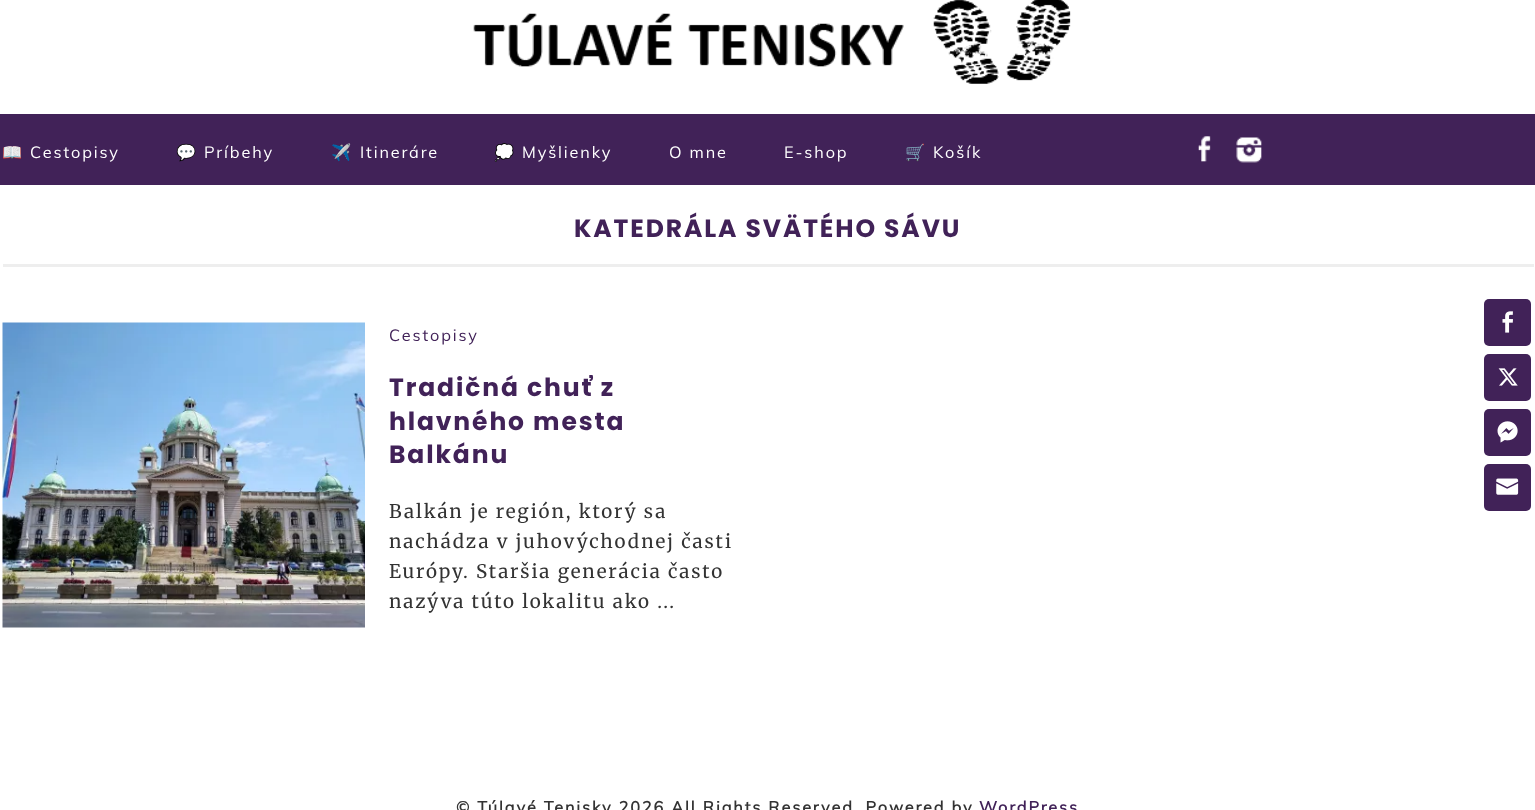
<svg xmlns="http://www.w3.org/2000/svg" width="1535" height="810">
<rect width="100%" height="100%" fill="#fff"/>
<image x="473" y="0" width="598" height="84" href="media/1.png"/>
<rect y="114" width="1535" height="71" fill="#412258"/>
<text x="2" y="158" style="font-family:Noto Color Emoji;font-size:16.25px;letter-spacing:1.88px;fill:#fff">📖</text>
<text x="30" y="158" style="font-family:Muli;font-size:16.25px;letter-spacing:1.88px;fill:#fff">Cestopisy</text>
<text x="176" y="158" style="font-family:Noto Color Emoji;font-size:16.25px;letter-spacing:1.88px;fill:#fff">💬</text>
<text x="204" y="158" style="font-family:Muli;font-size:16.25px;letter-spacing:1.88px;fill:#fff">Príbehy</text>
<text x="331" y="158" style="font-family:Noto Color Emoji;font-size:16.25px;letter-spacing:1.88px;fill:#fff">✈️</text>
<text x="360" y="158" style="font-family:Muli;font-size:16.25px;letter-spacing:1.88px;fill:#fff">Itineráre</text>
<text x="494" y="158" style="font-family:Noto Color Emoji;font-size:16.25px;letter-spacing:1.88px;fill:#fff">💭</text>
<text x="522" y="158" style="font-family:Muli;font-size:16.25px;letter-spacing:1.88px;fill:#fff">Myšlienky</text>
<text x="669" y="158" style="font-family:Muli;font-size:16.25px;letter-spacing:1.88px;fill:#fff">O mne</text>
<text x="784" y="158" style="font-family:Muli;font-size:16.25px;letter-spacing:1.88px;fill:#fff">E-shop</text>
<text x="905" y="158" style="font-family:Noto Color Emoji;font-size:16.25px;letter-spacing:1.88px;fill:#fff">🛒</text>
<text x="933" y="158" style="font-family:Muli;font-size:16.25px;letter-spacing:1.88px;fill:#fff">Košík</text>
<image x="1198" y="136" width="13" height="26" href="media/2.png"/>
<image x="1236" y="137" width="26" height="26" href="media/3.png"/>
<rect x="3" y="264" width="1531" height="3" fill="#eee"/>
<text x="574" y="237" style="font-family:Poppins;font-size:25px;font-weight:bold;letter-spacing:1.88px;fill:#412258">KATEDRÁLA SVÄTÉHO SÁVU</text>
<image x="2" y="322" width="363" height="306" href="media/4.png"/>
<text x="389" y="341" style="font-family:Muli;font-size:16.25px;letter-spacing:1.88px;fill:#412258">Cestopisy</text>
<text x="389" y="396" style="font-family:Poppins;font-size:25px;font-weight:bold;letter-spacing:1.88px;fill:#412258">Tradičná chuť z</text>
<text x="389" y="430" style="font-family:Poppins;font-size:25px;font-weight:bold;letter-spacing:1.88px;fill:#412258">hlavného mesta</text>
<text x="389" y="463" style="font-family:Poppins;font-size:25px;font-weight:bold;letter-spacing:1.88px;fill:#412258">Balkánu</text>
<text x="389" y="518" style="font-family:Merriweather;font-size:18.75px;letter-spacing:1.88px;fill:#333">Balkán je región, ktorý sa</text>
<text x="389" y="548" style="font-family:Merriweather;font-size:18.75px;letter-spacing:1.88px;fill:#333">nachádza v juhovýchodnej časti</text>
<text x="389" y="578" style="font-family:Merriweather;font-size:18.75px;letter-spacing:1.88px;fill:#333">Európy. Staršia generácia často</text>
<text x="389" y="608" style="font-family:Merriweather;font-size:18.75px;letter-spacing:1.88px;fill:#333">nazýva túto lokalitu ako ...</text>
<rect x="1484" y="299" width="47" height="47" rx="5" fill="#412258"/>
<image x="1502" y="311" width="11" height="22" href="media/5.png"/>
<rect x="1484" y="354" width="47" height="47" rx="5" fill="#412258"/>
<image x="1498" y="368" width="20" height="18" href="media/6.png"/>
<rect x="1484" y="409" width="47" height="47" rx="5" fill="#412258"/>
<image x="1497" y="421" width="21" height="22" href="media/7.png"/>
<rect x="1484" y="464" width="47" height="47" rx="5" fill="#412258"/>
<image x="1496" y="478" width="23" height="17" href="media/8.png"/>
<text x="456" y="813" style="font-family:Muli;font-size:16.25px;font-weight:bold;letter-spacing:1.88px;fill:#333">© Túlavé Tenisky 2026 All Rights Reserved. Powered by</text>
<text x="979" y="813" style="font-family:Muli;font-size:16.25px;font-weight:bold;letter-spacing:1.88px;fill:#412258">WordPress</text>
</svg>
